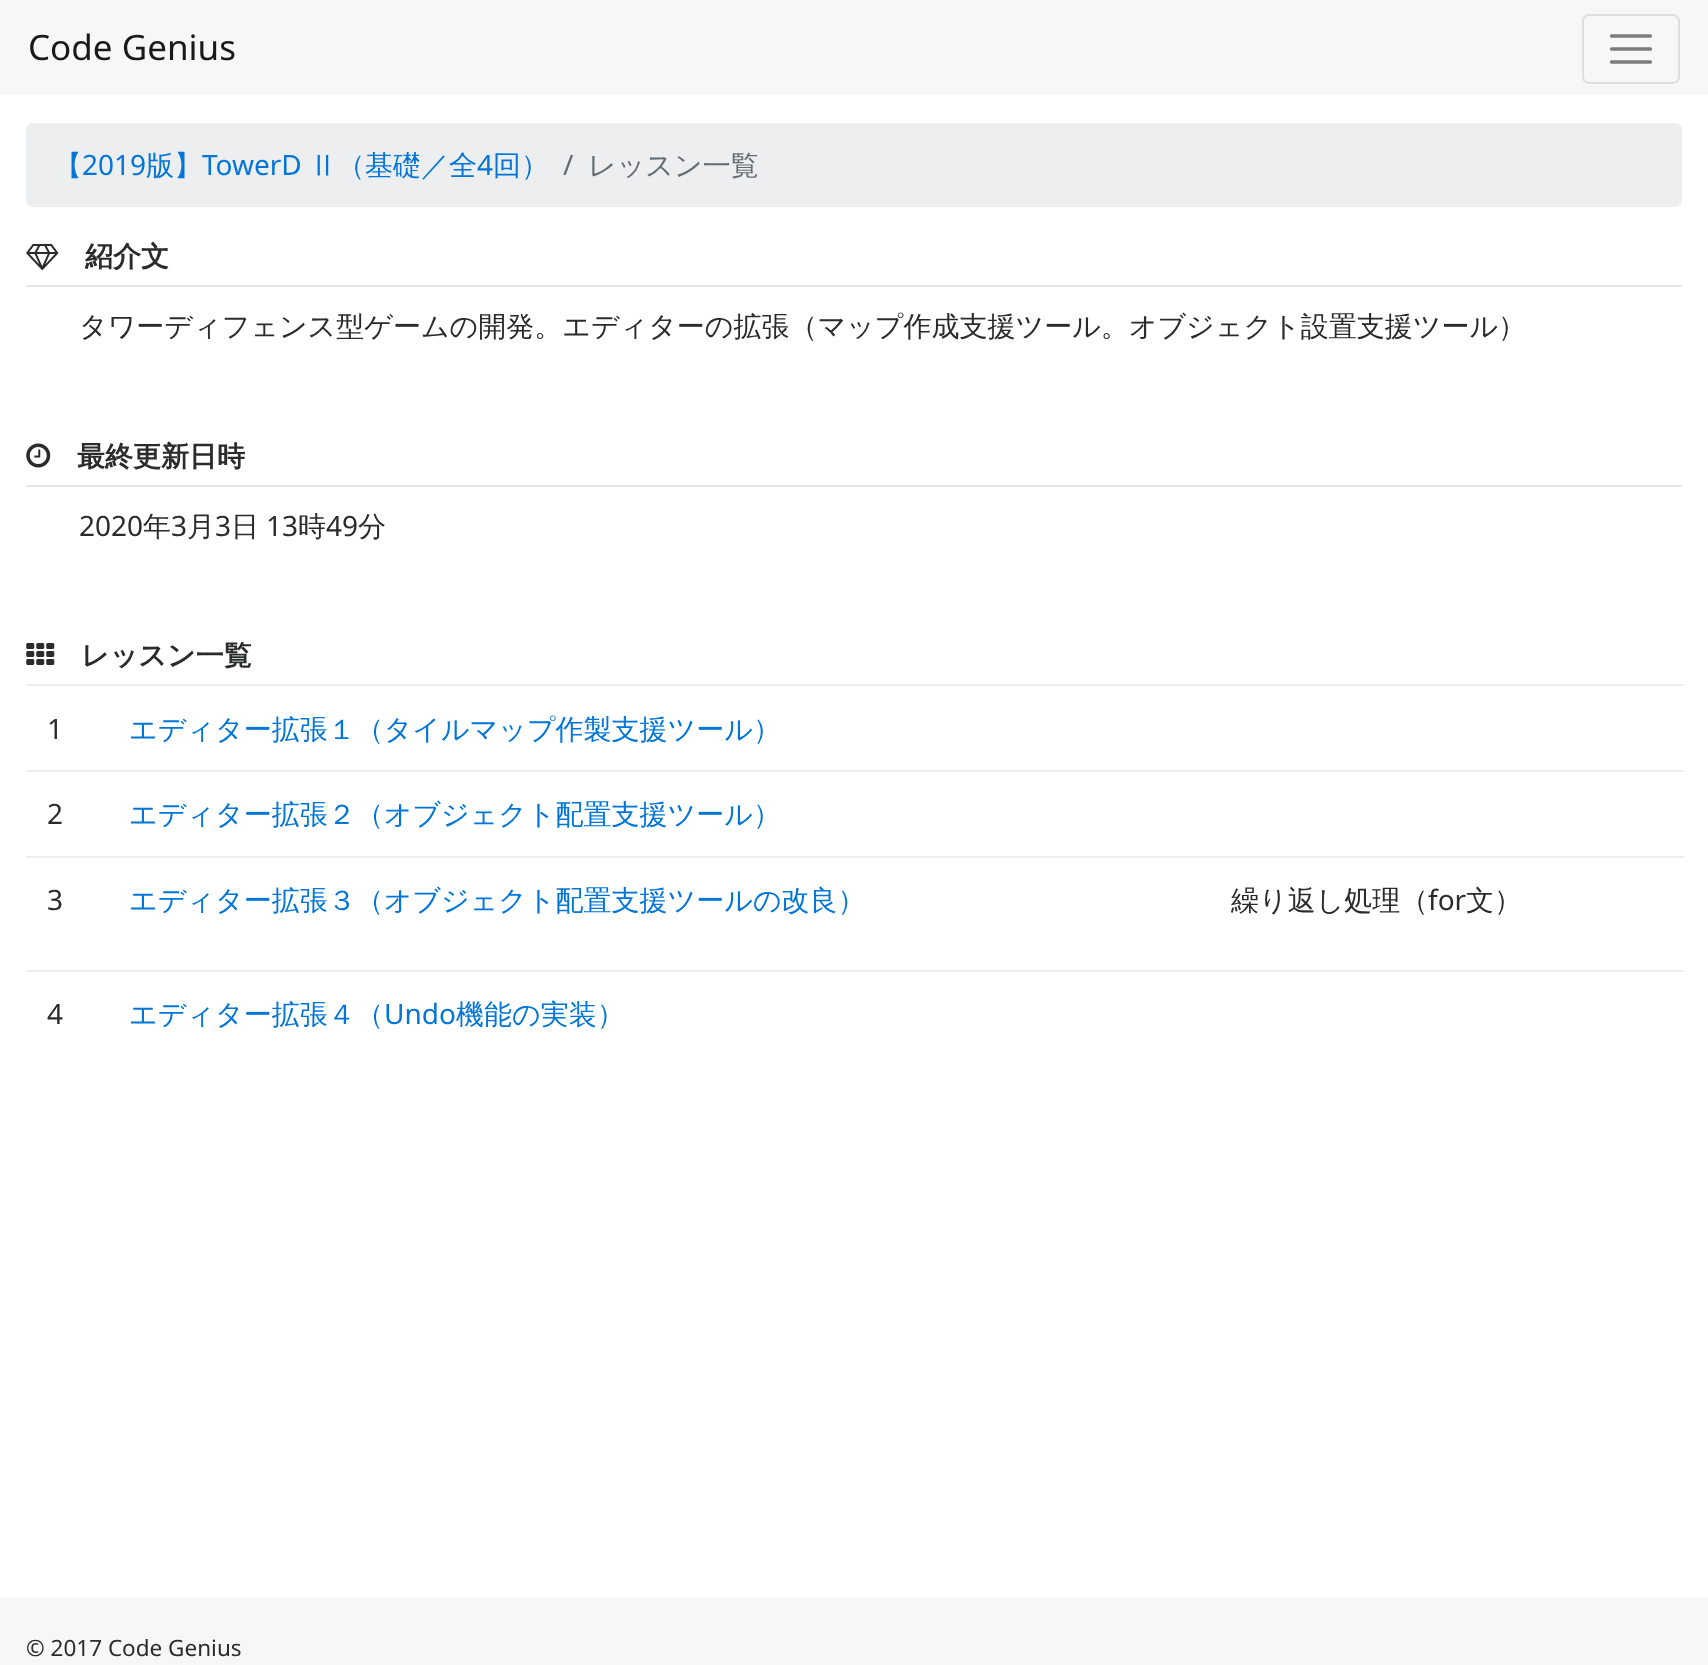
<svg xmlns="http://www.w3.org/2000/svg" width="1708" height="1665">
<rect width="100%" height="100%" fill="#fff"/>
<rect width="1708" height="95" fill="#f7f7f7"/>
<text x="28" y="60" style="font-family:Noto Sans;font-size:35px;fill:#191919">Code Genius</text>
<rect x="1583" y="15" width="96" height="68" rx="6" fill="none" stroke="#dedede" stroke-width="2"/>
<path d="M1611.5 36h39m-39 13h39m-39 13h39" fill="none" stroke="#7c7c7c" stroke-width="3.3" stroke-linecap="round"/>
<rect x="26" y="123" width="1656" height="84" rx="7" fill="#eceeef"/>
<text x="54" y="175" style="font-family:WenQuanYi Zen Hei;font-size:28px;font-weight:500;fill:#0275d8">【</text>
<text x="82" y="175" style="font-family:Noto Sans;font-size:28px;fill:#0275d8">2019</text>
<text x="146" y="175" style="font-family:WenQuanYi Zen Hei;font-size:28px;font-weight:500;fill:#0275d8">版】</text>
<text x="202" y="175" style="font-family:Noto Sans;font-size:28px;fill:#0275d8">TowerD</text>
<text x="309" y="175" style="font-family:WenQuanYi Zen Hei;font-size:28px;font-weight:500;fill:#0275d8">Ⅱ（基礎／全</text>
<text x="477" y="175" style="font-family:Noto Sans;font-size:28px;fill:#0275d8">4</text>
<text x="493" y="175" style="font-family:WenQuanYi Zen Hei;font-size:28px;font-weight:500;fill:#0275d8">回）</text>
<text x="563" y="175" style="font-family:Noto Sans;font-size:28px;fill:#636c72">/</text>
<text x="588" y="175" style="font-family:WenQuanYi Zen Hei;font-size:28px;font-weight:500;fill:#636c72">レッスン一覧</text>
<rect x="26" y="285" width="1656" height="2" fill="#e8e8e8"/>
<image x="26" y="244" width="33" height="26" href="media/1.png"/>
<text x="85" y="266" style="font-family:WenQuanYi Zen Hei;font-size:28px;font-weight:bold;fill:#292b2c">紹介文</text>
<text x="79" y="336" style="font-family:WenQuanYi Zen Hei;font-size:28px;font-weight:500;fill:#292b2c">タワーディフェンス型ゲームの開発。エディターの拡張（マップ作成支援ツール。オブジェクト設置支援ツール）</text>
<rect x="26" y="485" width="1656" height="2" fill="#e8e8e8"/>
<image x="26" y="443" width="25" height="25" href="media/2.png"/>
<text x="77" y="466" style="font-family:WenQuanYi Zen Hei;font-size:28px;font-weight:bold;fill:#292b2c">最終更新日時</text>
<text x="79" y="536" style="font-family:Noto Sans;font-size:28px;fill:#292b2c">2020</text>
<text x="143" y="536" style="font-family:WenQuanYi Zen Hei;font-size:28px;font-weight:500;fill:#292b2c">年</text>
<text x="171" y="536" style="font-family:Noto Sans;font-size:28px;fill:#292b2c">3</text>
<text x="187" y="536" style="font-family:WenQuanYi Zen Hei;font-size:28px;font-weight:500;fill:#292b2c">月</text>
<text x="215" y="536" style="font-family:Noto Sans;font-size:28px;fill:#292b2c">3</text>
<text x="231" y="536" style="font-family:WenQuanYi Zen Hei;font-size:28px;font-weight:500;fill:#292b2c">日</text>
<text x="266" y="536" style="font-family:Noto Sans;font-size:28px;fill:#292b2c">13</text>
<text x="298" y="536" style="font-family:WenQuanYi Zen Hei;font-size:28px;font-weight:500;fill:#292b2c">時</text>
<text x="326" y="536" style="font-family:Noto Sans;font-size:28px;fill:#292b2c">49</text>
<text x="358" y="536" style="font-family:WenQuanYi Zen Hei;font-size:28px;font-weight:500;fill:#292b2c">分</text>
<image x="26" y="643" width="29" height="22" href="media/3.png"/>
<text x="81" y="665" style="font-family:WenQuanYi Zen Hei;font-size:28px;font-weight:bold;fill:#292b2c">レッスン一覧</text>
<rect x="26" y="684" width="1658" height="2" fill="#eceeef"/>
<text x="47" y="739" style="font-family:Noto Sans;font-size:28px;fill:#292b2c">1</text>
<text x="129" y="739" style="font-family:WenQuanYi Zen Hei;font-size:28px;font-weight:500;fill:#0275d8">エディター拡張１（タイルマップ作製支援ツール）</text>
<rect x="26" y="770" width="1658" height="2" fill="#eceeef"/>
<text x="47" y="824" style="font-family:Noto Sans;font-size:28px;fill:#292b2c">2</text>
<text x="129" y="824" style="font-family:WenQuanYi Zen Hei;font-size:28px;font-weight:500;fill:#0275d8">エディター拡張２（オブジェクト配置支援ツール）</text>
<text x="47" y="910" style="font-family:Noto Sans;font-size:28px;fill:#292b2c">3</text>
<text x="129" y="910" style="font-family:WenQuanYi Zen Hei;font-size:28px;font-weight:500;fill:#0275d8">エディター拡張３（オブジェクト配置支援ツールの改良）</text>
<rect x="26" y="856" width="1658" height="2" fill="#eceeef"/>
<text x="1231" y="910" style="font-family:WenQuanYi Zen Hei;font-size:28px;font-weight:500;fill:#292b2c">繰り返し処理（</text>
<text x="1428" y="910" style="font-family:Noto Sans;font-size:28px;fill:#292b2c">for</text>
<text x="1466" y="910" style="font-family:WenQuanYi Zen Hei;font-size:28px;font-weight:500;fill:#292b2c">文）</text>
<rect x="26" y="970" width="1658" height="2" fill="#eceeef"/>
<text x="47" y="1024" style="font-family:Noto Sans;font-size:28px;fill:#292b2c">4</text>
<text x="129" y="1024" style="font-family:WenQuanYi Zen Hei;font-size:28px;font-weight:500;fill:#0275d8">エディター拡張４（</text>
<text x="384" y="1024" style="font-family:Noto Sans;font-size:28px;fill:#0275d8">Undo</text>
<text x="456" y="1024" style="font-family:WenQuanYi Zen Hei;font-size:28px;font-weight:500;fill:#0275d8">機能の実装）</text>
<rect y="1598" width="1708" height="67" fill="#f7f7f7"/>
<text x="26" y="1656" style="font-family:Noto Sans;font-size:22.5px;fill:#292b2c">© 2017 Code Genius</text>
</svg>
